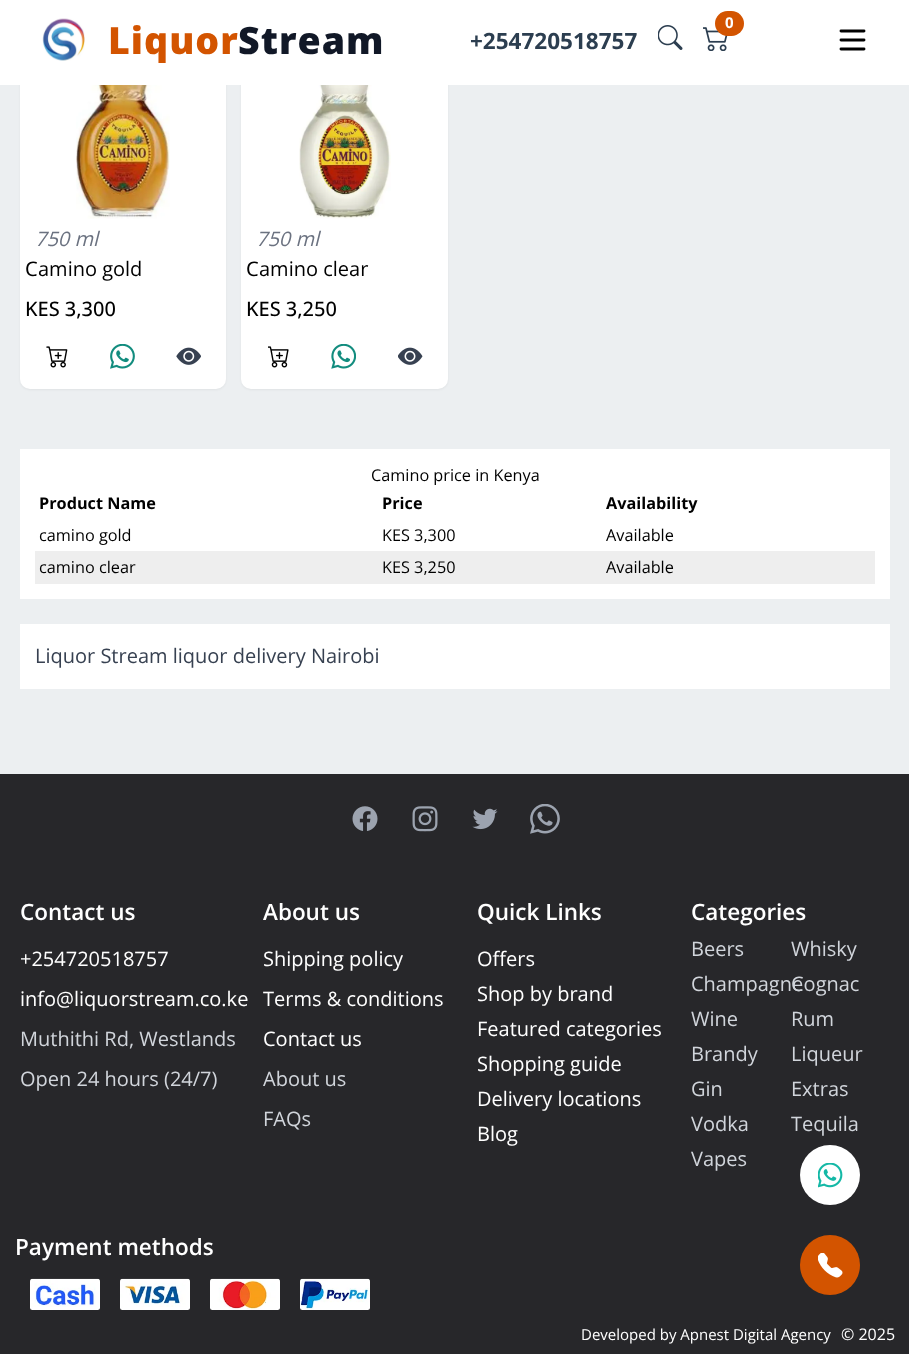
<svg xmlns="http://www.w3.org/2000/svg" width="909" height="1354">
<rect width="100%" height="100%" fill="#eceff1"/>
<rect x="20" y="-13" width="206" height="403" rx="10" fill="#0000000d" filter="blur(1px)"/>
<rect x="20" y="-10" width="206" height="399" rx="10" fill="#fff"/>
<rect x="241" y="-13" width="207" height="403" rx="10" fill="#0000000d" filter="blur(1px)"/>
<rect x="241" y="-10" width="207" height="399" rx="10" fill="#fff"/>
<rect width="909" height="85" fill="#fff"/>
<image x="42" y="18" width="43" height="43" href="media/1.png"/>
<text x="108" y="54" style="font-family:Open Sans;font-size:37.5px;font-weight:800;letter-spacing:1px;fill:#d35400">Liquor</text>
<text x="238" y="54" style="font-family:Open Sans;font-size:37.5px;font-weight:800;letter-spacing:1px;fill:#111827">Stream</text>
<image x="703" y="27" width="25" height="24" href="media/2.png"/>
<rect x="715" y="11" width="29" height="25" rx="12.5" fill="#d35400"/>
<text x="725" y="28" style="font-family:Open Sans;font-size:15px;font-weight:bold;fill:#fff">0</text>
<text x="470" y="49" style="font-family:Open Sans;font-size:22.5px;font-weight:bold;fill:#2c3e50">+254720518757</text>
<image x="658" y="25" width="25" height="25" href="media/3.png"/>
<path d="M841 31h23m-23 9h23m-23 9h23" fill="none" stroke="#000" stroke-width="2.9" stroke-linecap="round" stroke-linejoin="round"/>
<image x="76" y="85" width="94" height="134" href="media/4.png"/>
<text x="35" y="246" style="font-family:Open Sans;font-size:20px;font-style:italic;fill:#6b7280">750 ml</text>
<text x="25" y="276" style="font-family:Noto Sans;font-size:20px;fill:#000">C</text>
<text x="38" y="276" style="font-family:Open Sans;font-size:20px;fill:#000">amino gold</text>
<text x="25" y="316" style="font-family:Open Sans;font-size:20px;font-weight:500;fill:#000">KES 3,300</text>
<image x="46" y="346" width="22" height="22" href="media/5.png"/>
<image x="110" y="344" width="25" height="25" href="media/6.png"/>
<image x="176" y="347" width="25" height="18" href="media/7.png"/>
<image x="299" y="85" width="92" height="134" href="media/8.png"/>
<text x="256" y="246" style="font-family:Open Sans;font-size:20px;font-style:italic;fill:#6b7280">750 ml</text>
<text x="246" y="276" style="font-family:Noto Sans;font-size:20px;fill:#000">C</text>
<text x="259" y="276" style="font-family:Open Sans;font-size:20px;fill:#000">amino clear</text>
<text x="246" y="316" style="font-family:Open Sans;font-size:20px;font-weight:500;fill:#000">KES 3,250</text>
<image x="268" y="346" width="21" height="22" href="media/9.png"/>
<image x="331" y="344" width="25" height="25" href="media/10.png"/>
<image x="398" y="347" width="25" height="18" href="media/11.png"/>
<rect x="20" y="449" width="870" height="150" fill="#fff"/>
<text x="371" y="481" style="font-family:Open Sans;font-size:16.25px;fill:#000">Camino price in Kenya</text>
<text x="39" y="509" style="font-family:Open Sans;font-size:16.25px;font-weight:bold;fill:#000">Product Name</text>
<text x="382" y="509" style="font-family:Open Sans;font-size:16.25px;font-weight:bold;fill:#000">Price</text>
<text x="606" y="509" style="font-family:Open Sans;font-size:16.25px;font-weight:bold;fill:#000">Availability</text>
<text x="39" y="541" style="font-family:Open Sans;font-size:16.25px;fill:#000">camino gold</text>
<text x="382" y="541" style="font-family:Open Sans;font-size:16.25px;fill:#000">KES 3,300</text>
<text x="606" y="541" style="font-family:Open Sans;font-size:16.25px;fill:#000">Available</text>
<rect x="35" y="551" width="840" height="33" fill="#eee"/>
<text x="39" y="573" style="font-family:Open Sans;font-size:16.25px;fill:#000">camino clear</text>
<text x="382" y="573" style="font-family:Open Sans;font-size:16.25px;fill:#000">KES 3,250</text>
<text x="606" y="573" style="font-family:Open Sans;font-size:16.25px;fill:#000">Available</text>
<rect x="20" y="624" width="870" height="65" fill="#fff"/>
<text x="35" y="663" style="font-family:Open Sans;font-size:20px;fill:#374151">Liquor Stream liquor delivery Nairobi</text>
<rect y="774" width="909" height="580" fill="#27272a"/>
<circle cx="830" cy="1175" r="30" fill="#fff"/>
<image x="818" y="1163" width="25" height="25" href="media/12.png"/>
<circle cx="830" cy="1265" r="30" fill="#d35400"/>
<image x="818" y="1253" width="25" height="25" href="media/13.png"/>
<image x="352" y="806" width="26" height="25" href="media/14.png"/>
<image x="412" y="806" width="26" height="26" href="media/15.png"/>
<image x="472" y="808" width="26" height="22" href="media/16.png"/>
<image x="530" y="804" width="30" height="30" href="media/17.png"/>
<text x="20" y="920" style="font-family:Open Sans;font-size:22.5px;font-weight:600;fill:#fff">Contact us</text>
<text x="20" y="966" style="font-family:Open Sans;font-size:20px;fill:#fff">+254720518757</text>
<text x="20" y="1006" style="font-family:Open Sans;font-size:20px;fill:#fff">info@liquorstream.co.ke</text>
<text x="20" y="1046" style="font-family:Open Sans;font-size:20px;fill:#d1d5db">Muthithi Rd, Westlands</text>
<text x="20" y="1086" style="font-family:Open Sans;font-size:20px;fill:#d1d5db">Open 24 hours (24/7)</text>
<text x="263" y="920" style="font-family:Open Sans;font-size:22.5px;font-weight:600;fill:#fff">About us</text>
<text x="263" y="966" style="font-family:Open Sans;font-size:20px;fill:#fff">Shipping policy</text>
<text x="263" y="1006" style="font-family:Open Sans;font-size:20px;fill:#fff">Terms &amp; conditions</text>
<text x="263" y="1046" style="font-family:Open Sans;font-size:20px;fill:#fff">Contact us</text>
<text x="263" y="1086" style="font-family:Open Sans;font-size:20px;fill:#d1d5db">About us</text>
<text x="263" y="1126" style="font-family:Open Sans;font-size:20px;fill:#d1d5db">FAQs</text>
<text x="477" y="920" style="font-family:Open Sans;font-size:22.5px;font-weight:600;fill:#fff">Quick Links</text>
<text x="477" y="966" style="font-family:Open Sans;font-size:20px;fill:#fff">Offers</text>
<text x="477" y="1001" style="font-family:Open Sans;font-size:20px;fill:#fff">Shop by brand</text>
<text x="477" y="1036" style="font-family:Open Sans;font-size:20px;fill:#fff">Featured categories</text>
<text x="477" y="1071" style="font-family:Open Sans;font-size:20px;fill:#fff">Shopping guide</text>
<text x="477" y="1106" style="font-family:Open Sans;font-size:20px;fill:#fff">Delivery locations</text>
<text x="477" y="1141" style="font-family:Open Sans;font-size:20px;fill:#fff">Blog</text>
<text x="691" y="920" style="font-family:Open Sans;font-size:22.5px;font-weight:600;fill:#fff">Categories</text>
<text x="691" y="956" style="font-family:Open Sans;font-size:20px;fill:#d1d5db">Beers</text>
<text x="791" y="956" style="font-family:Open Sans;font-size:20px;fill:#d1d5db">Whisky</text>
<text x="691" y="991" style="font-family:Open Sans;font-size:20px;fill:#d1d5db">Champagne</text>
<text x="791" y="991" style="font-family:Open Sans;font-size:20px;fill:#d1d5db">Cognac</text>
<text x="691" y="1026" style="font-family:Open Sans;font-size:20px;fill:#d1d5db">Wine</text>
<text x="791" y="1026" style="font-family:Open Sans;font-size:20px;fill:#d1d5db">Rum</text>
<text x="691" y="1061" style="font-family:Open Sans;font-size:20px;fill:#d1d5db">Brandy</text>
<text x="791" y="1061" style="font-family:Open Sans;font-size:20px;fill:#d1d5db">Liqueur</text>
<text x="691" y="1096" style="font-family:Open Sans;font-size:20px;fill:#d1d5db">Gin</text>
<text x="791" y="1096" style="font-family:Open Sans;font-size:20px;fill:#d1d5db">Extras</text>
<text x="691" y="1131" style="font-family:Open Sans;font-size:20px;fill:#d1d5db">Vodka</text>
<text x="791" y="1131" style="font-family:Open Sans;font-size:20px;fill:#d1d5db">Tequila</text>
<text x="691" y="1166" style="font-family:Open Sans;font-size:20px;fill:#d1d5db">Vapes</text>
<text x="15" y="1255" style="font-family:Open Sans;font-size:22.5px;font-weight:600;fill:#fff">Payment methods</text>
<image x="30" y="1278" width="70" height="32" href="media/18.png"/>
<image x="120" y="1278" width="70" height="32" href="media/19.png"/>
<image x="210" y="1278" width="70" height="32" href="media/20.png"/>
<image x="300" y="1278" width="70" height="32" href="media/21.png"/>
<text x="581" y="1340" style="font-family:Open Sans;font-size:15px;fill:#fff">Developed by Apnest Digital Agency</text>
<text x="841" y="1340" style="font-family:Open Sans;font-size:16px;fill:#fff">© 2025</text>
</svg>
